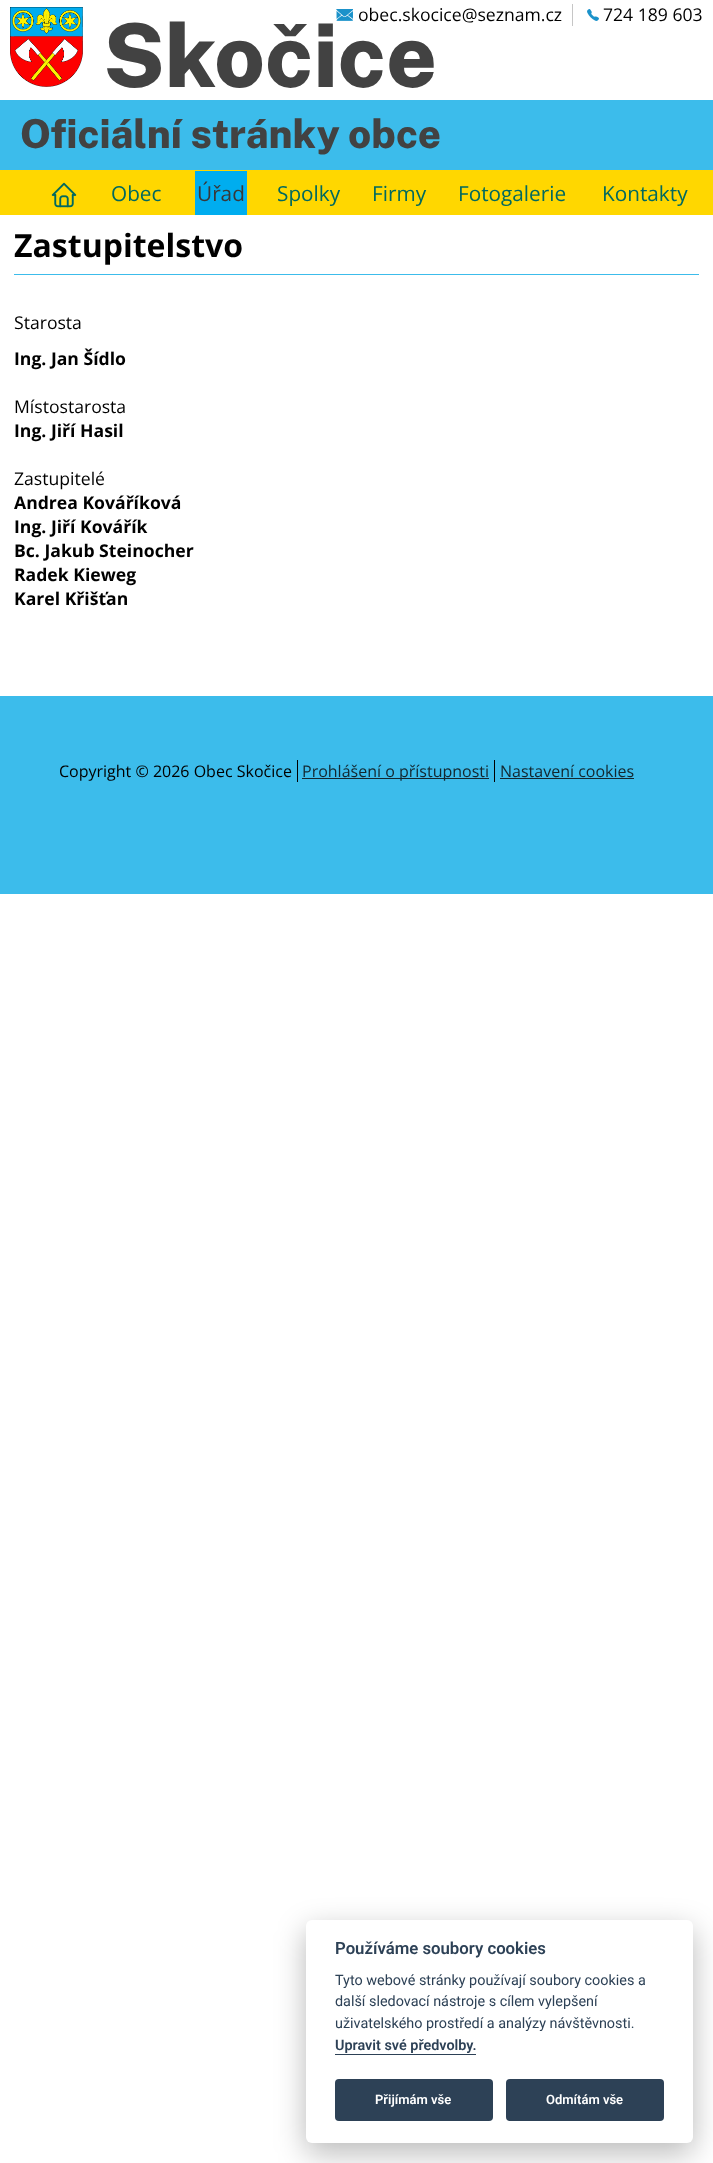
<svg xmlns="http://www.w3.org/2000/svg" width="713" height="2163">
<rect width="100%" height="100%" fill="#fff"/>
<rect x="572" y="4" width="1" height="22" fill="#c6c6c6"/>
<image x="336" y="9" width="17" height="12" href="media/1.png"/>
<text x="358" y="21" style="font-family:Open Sans;font-size:17.6px;fill:#000">obec.skocice@seznam.cz</text>
<image x="587" y="9" width="12" height="12" href="media/2.png"/>
<text x="603" y="21" style="font-family:Open Sans;font-size:17.6px;fill:#000">724 189 603</text>
<image x="10" y="7" width="73" height="80" href="media/3.png"/>
<text x="103" y="87" style="font-family:Public Sans;font-size:88px;font-weight:100;fill:#424242">Skočice</text>
<rect y="100" width="713" height="70" fill="#3cbceb"/>
<text x="20" y="148" style="font-family:Public Sans;font-size:40px;font-weight:100;fill:#424242">Oficiální stránky obce</text>
<rect y="170" width="713" height="45" fill="#ffd700"/>
<image x="51" y="182" width="26" height="26" href="media/4.png"/>
<text x="111" y="201" style="font-family:Open Sans;font-size:20.75px;fill:#01695f">Obec</text>
<rect x="195" y="171" width="52" height="44" fill="#00adef"/>
<text x="197" y="201" style="font-family:Open Sans;font-size:20.75px;fill:#383838">Úřad</text>
<text x="277" y="201" style="font-family:Open Sans;font-size:20.75px;fill:#01695f">Spolky</text>
<text x="372" y="201" style="font-family:Open Sans;font-size:20.75px;fill:#01695f">Firmy</text>
<text x="458" y="201" style="font-family:Open Sans;font-size:20.75px;fill:#01695f">Fotogalerie</text>
<text x="602" y="201" style="font-family:Open Sans;font-size:20.75px;fill:#01695f">Kontakty</text>
<rect x="14" y="274" width="685" height="1" fill="#3cbceb"/>
<text x="14" y="257" style="font-family:Open Sans;font-size:32px;font-weight:bold;fill:#000">Zastupitelstvo</text>
<text x="14" y="329" style="font-family:Open Sans;font-size:17.6px;fill:#000">Starosta</text>
<text x="14" y="365" style="font-family:Open Sans;font-size:17.6px;font-weight:bold;fill:#000">Ing. Jan Šídlo</text>
<text x="14" y="413" style="font-family:Open Sans;font-size:17.6px;fill:#000">Místostarosta</text>
<text x="14" y="437" style="font-family:Open Sans;font-size:17.6px;font-weight:bold;fill:#000">Ing. Jiří Hasil</text>
<text x="14" y="485" style="font-family:Open Sans;font-size:17.6px;fill:#000">Zastupitelé</text>
<text x="14" y="509" style="font-family:Open Sans;font-size:17.6px;font-weight:bold;fill:#000">Andrea Kováříková</text>
<text x="14" y="533" style="font-family:Open Sans;font-size:17.6px;font-weight:bold;fill:#000">Ing. Jiří Kovářík</text>
<text x="14" y="557" style="font-family:Open Sans;font-size:17.6px;font-weight:bold;fill:#000">Bc. Jakub Steinocher</text>
<text x="14" y="581" style="font-family:Open Sans;font-size:17.6px;font-weight:bold;fill:#000">Radek Kieweg</text>
<text x="14" y="605" style="font-family:Open Sans;font-size:17.6px;font-weight:bold;fill:#000">Karel Křišťan</text>
<rect y="696" width="713" height="198" fill="#3cbceb"/>
<text x="59" y="777" style="font-family:Open Sans;font-size:16px;fill:#000">Copyright © 2026 Obec Skočice</text>
<rect x="297" y="760" width="1" height="22" fill="#000"/>
<rect x="302" y="778" width="187" height="1" fill="#13272f"/>
<text x="302" y="777" style="font-family:Open Sans;font-size:16px;fill:#13272f">Prohlášení o přístupnosti</text>
<rect x="494" y="760" width="1" height="22" fill="#000"/>
<text x="500" y="777" style="font-family:Open Sans;font-size:16px;fill:#13272f">Nastavení cookies</text>
<rect x="500" y="778" width="134" height="1" fill="#13272f"/>
<rect x="306" y="1930" width="387" height="223" rx="6" fill="#02020347" filter="blur(15px)"/>
<rect x="306" y="1920" width="387" height="223" rx="6" fill="#fff"/>
<text x="335" y="1954" style="font-family:Roboto;font-size:16.75px;font-weight:600;fill:#2d4156">Používáme soubory cookies</text>
<text x="335" y="1985" style="font-family:Roboto;font-size:14.4px;fill:#2d4156">Tyto webové stránky používají soubory cookies a</text>
<text x="335" y="2006" style="font-family:Roboto;font-size:14.4px;fill:#2d4156">další sledovací nástroje s cílem vylepšení</text>
<text x="335" y="2028" style="font-family:Roboto;font-size:14.4px;fill:#2d4156">uživatelského prostředí a analýzy návštěvnosti.</text>
<text x="335" y="2050" style="font-family:Roboto;font-size:14.4px;font-weight:600;fill:#2d4156">Upravit své předvolby.</text>
<rect x="335" y="2054" width="141" height="1" fill="#2d4156"/>
<rect x="335" y="2079" width="158" height="42" rx="4" fill="#2d4156"/>
<text x="375" y="2104" style="font-family:Roboto;font-size:13px;font-weight:600;fill:#fff">Přijímám vše</text>
<rect x="506" y="2079" width="158" height="42" rx="4" fill="#2d4156"/>
<text x="546" y="2104" style="font-family:Roboto;font-size:13px;font-weight:600;fill:#fff">Odmítám vše</text>
</svg>
